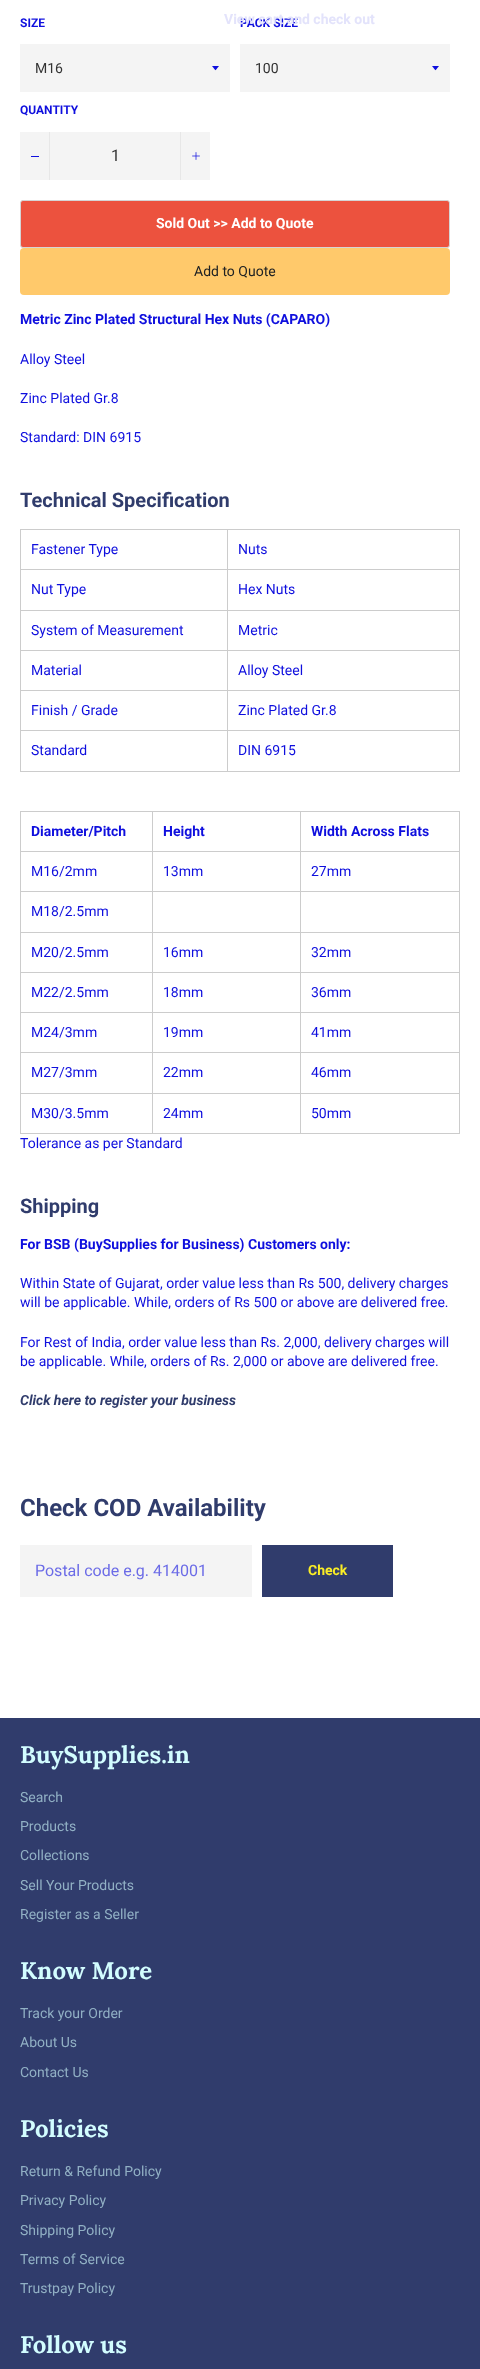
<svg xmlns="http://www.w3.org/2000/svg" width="480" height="2369">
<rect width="100%" height="100%" fill="#fff"/>
<text x="240" y="27" style="font-family:Roboto;font-size:12px;font-weight:bold;fill:#0f0fde">PACK SIZE</text>
<text x="224" y="24" style="font-family:Roboto;font-size:14px;font-weight:bold;fill:#e3e3fb">View cart and check out</text>
<text x="20" y="27" style="font-family:Roboto;font-size:12px;font-weight:bold;fill:#0f0fde">SIZE</text>
<rect x="20" y="44" width="210" height="48" fill="#f4f4f4"/>
<path d="M212 66c4.5 5.5 2.5 5.5 7 0z" fill="#0f0fde"/>
<text x="35" y="73" style="font-family:Roboto;font-size:14px;fill:#333">M16</text>
<rect x="240" y="44" width="210" height="48" fill="#f4f4f4"/>
<path d="M432 66c4.5 5.5 2.5 5.5 7 0z" fill="#0f0fde"/>
<text x="255" y="73" style="font-family:Roboto;font-size:14px;fill:#333">100</text>
<text x="20" y="114" style="font-family:Roboto;font-size:12px;font-weight:bold;fill:#0f0fde">QUANTITY</text>
<rect x="20" y="132" width="190" height="48" fill="#f4f4f4"/>
<rect x="49" y="132" width="1" height="48" fill="#e7e7e7"/>
<rect x="31" y="156" width="8" height="1" fill="#0f0fde"/>
<text x="111" y="161" style="font-family:Roboto;font-size:16px;fill:#333">1</text>
<rect x="180" y="132" width="1" height="48" fill="#e7e7e7"/>
<image x="192" y="152" width="8" height="8" href="media/1.png"/>
<rect x="20.5" y="200.5" width="429" height="47" rx="2.5" fill="#ec523e" stroke="#d5d5d5"/>
<text x="156" y="228" style="font-family:Roboto;font-size:14px;font-weight:bold;fill:#fff">Sold Out &gt;&gt; Add to Quote</text>
<rect x="20" y="248" width="430" height="47" rx="4" fill="#ffc96b"/>
<text x="194" y="276" style="font-family:Roboto;font-size:14px;fill:#202223">Add to Quote</text>
<text x="20" y="324" style="font-family:Roboto;font-size:14px;font-weight:bold;fill:#0f0fde">Metric Zinc Plated Structural Hex Nuts (CAPARO)</text>
<text x="20" y="364" style="font-family:Roboto;font-size:14px;fill:#0f0fde">Alloy Steel</text>
<text x="20" y="403" style="font-family:Roboto;font-size:14px;fill:#0f0fde">Zinc Plated Gr.8</text>
<text x="20" y="442" style="font-family:Roboto;font-size:14px;fill:#0f0fde">Standard: DIN 6915</text>
<text x="20" y="507" style="font-family:Roboto;font-size:20px;font-weight:bold;fill:#303c6c">Technical Specification</text>
<rect x="227" y="529" width="233" height="1" fill="#ccc"/>
<rect x="227" y="569" width="233" height="1" fill="#ccc"/>
<rect x="227" y="610" width="233" height="1" fill="#ccc"/>
<rect x="227" y="650" width="233" height="1" fill="#ccc"/>
<rect x="227" y="690" width="233" height="1" fill="#ccc"/>
<rect x="227" y="730" width="233" height="1" fill="#ccc"/>
<rect x="459" y="730" width="1" height="42" fill="#ccc"/>
<rect x="227" y="771" width="233" height="1" fill="#ccc"/>
<rect x="227" y="730" width="1" height="42" fill="#ccc"/>
<rect x="20" y="730" width="208" height="1" fill="#ccc"/>
<rect x="227" y="690" width="1" height="41" fill="#ccc"/>
<rect x="20" y="690" width="208" height="1" fill="#ccc"/>
<rect x="227" y="650" width="1" height="41" fill="#ccc"/>
<rect x="20" y="650" width="208" height="1" fill="#ccc"/>
<rect x="227" y="610" width="1" height="41" fill="#ccc"/>
<rect x="20" y="610" width="208" height="1" fill="#ccc"/>
<rect x="227" y="569" width="1" height="42" fill="#ccc"/>
<rect x="20" y="569" width="208" height="1" fill="#ccc"/>
<rect x="227" y="529" width="1" height="41" fill="#ccc"/>
<rect x="20" y="529" width="208" height="1" fill="#ccc"/>
<rect x="20" y="771" width="208" height="1" fill="#ccc"/>
<rect x="20" y="730" width="1" height="42" fill="#ccc"/>
<rect x="20" y="690" width="1" height="41" fill="#ccc"/>
<rect x="20" y="650" width="1" height="41" fill="#ccc"/>
<rect x="20" y="610" width="1" height="41" fill="#ccc"/>
<rect x="20" y="569" width="1" height="42" fill="#ccc"/>
<rect x="20" y="529" width="1" height="41" fill="#ccc"/>
<text x="31" y="554" style="font-family:Roboto;font-size:14px;fill:#0f0fde">Fastener Type</text>
<rect x="459" y="690" width="1" height="41" fill="#ccc"/>
<rect x="459" y="650" width="1" height="41" fill="#ccc"/>
<rect x="459" y="610" width="1" height="41" fill="#ccc"/>
<rect x="459" y="569" width="1" height="42" fill="#ccc"/>
<rect x="459" y="529" width="1" height="41" fill="#ccc"/>
<text x="238" y="554" style="font-family:Roboto;font-size:14px;fill:#0f0fde">Nuts</text>
<text x="31" y="594" style="font-family:Roboto;font-size:14px;fill:#0f0fde">Nut Type</text>
<text x="238" y="594" style="font-family:Roboto;font-size:14px;fill:#0f0fde">Hex Nuts</text>
<text x="31" y="635" style="font-family:Roboto;font-size:14px;fill:#0f0fde">System of Measurement</text>
<text x="238" y="635" style="font-family:Roboto;font-size:14px;fill:#0f0fde">Metric</text>
<text x="31" y="675" style="font-family:Roboto;font-size:14px;fill:#0f0fde">Material</text>
<text x="238" y="675" style="font-family:Roboto;font-size:14px;fill:#0f0fde">Alloy Steel</text>
<text x="31" y="715" style="font-family:Roboto;font-size:14px;fill:#0f0fde">Finish / Grade</text>
<text x="238" y="715" style="font-family:Roboto;font-size:14px;fill:#0f0fde">Zinc Plated Gr.8</text>
<text x="31" y="755" style="font-family:Roboto;font-size:14px;fill:#0f0fde">Standard</text>
<text x="238" y="755" style="font-family:Roboto;font-size:14px;fill:#0f0fde">DIN 6915</text>
<rect x="300" y="811" width="160" height="1" fill="#ccc"/>
<rect x="300" y="851" width="160" height="1" fill="#ccc"/>
<rect x="300" y="891" width="160" height="1" fill="#ccc"/>
<rect x="300" y="932" width="160" height="1" fill="#ccc"/>
<rect x="300" y="972" width="160" height="1" fill="#ccc"/>
<rect x="300" y="1012" width="160" height="1" fill="#ccc"/>
<rect x="300" y="1052" width="160" height="1" fill="#ccc"/>
<rect x="300" y="1093" width="160" height="1" fill="#ccc"/>
<rect x="459" y="1093" width="1" height="41" fill="#ccc"/>
<rect x="300" y="1133" width="160" height="1" fill="#ccc"/>
<rect x="300" y="1093" width="1" height="41" fill="#ccc"/>
<rect x="152" y="1093" width="149" height="1" fill="#ccc"/>
<rect x="300" y="1052" width="1" height="42" fill="#ccc"/>
<rect x="152" y="1052" width="149" height="1" fill="#ccc"/>
<rect x="300" y="1012" width="1" height="41" fill="#ccc"/>
<rect x="152" y="1012" width="149" height="1" fill="#ccc"/>
<rect x="300" y="972" width="1" height="41" fill="#ccc"/>
<rect x="152" y="972" width="149" height="1" fill="#ccc"/>
<rect x="300" y="932" width="1" height="41" fill="#ccc"/>
<rect x="152" y="932" width="149" height="1" fill="#ccc"/>
<rect x="300" y="891" width="1" height="42" fill="#ccc"/>
<rect x="152" y="891" width="149" height="1" fill="#ccc"/>
<rect x="300" y="851" width="1" height="41" fill="#ccc"/>
<rect x="152" y="851" width="149" height="1" fill="#ccc"/>
<rect x="300" y="811" width="1" height="41" fill="#ccc"/>
<rect x="152" y="811" width="149" height="1" fill="#ccc"/>
<rect x="152" y="1133" width="149" height="1" fill="#ccc"/>
<rect x="152" y="1093" width="1" height="41" fill="#ccc"/>
<rect x="20" y="1093" width="133" height="1" fill="#ccc"/>
<rect x="152" y="1052" width="1" height="42" fill="#ccc"/>
<rect x="20" y="1052" width="133" height="1" fill="#ccc"/>
<rect x="152" y="1012" width="1" height="41" fill="#ccc"/>
<rect x="20" y="1012" width="133" height="1" fill="#ccc"/>
<rect x="152" y="972" width="1" height="41" fill="#ccc"/>
<rect x="20" y="972" width="133" height="1" fill="#ccc"/>
<rect x="152" y="932" width="1" height="41" fill="#ccc"/>
<rect x="20" y="932" width="133" height="1" fill="#ccc"/>
<rect x="152" y="891" width="1" height="42" fill="#ccc"/>
<rect x="20" y="891" width="133" height="1" fill="#ccc"/>
<rect x="152" y="851" width="1" height="41" fill="#ccc"/>
<rect x="20" y="851" width="133" height="1" fill="#ccc"/>
<rect x="152" y="811" width="1" height="41" fill="#ccc"/>
<rect x="20" y="811" width="133" height="1" fill="#ccc"/>
<rect x="20" y="1133" width="133" height="1" fill="#ccc"/>
<rect x="20" y="1093" width="1" height="41" fill="#ccc"/>
<rect x="20" y="1052" width="1" height="42" fill="#ccc"/>
<rect x="20" y="1012" width="1" height="41" fill="#ccc"/>
<rect x="20" y="972" width="1" height="41" fill="#ccc"/>
<rect x="20" y="932" width="1" height="41" fill="#ccc"/>
<rect x="20" y="891" width="1" height="42" fill="#ccc"/>
<rect x="20" y="851" width="1" height="41" fill="#ccc"/>
<rect x="20" y="811" width="1" height="41" fill="#ccc"/>
<text x="31" y="836" style="font-family:Roboto;font-size:14px;font-weight:bold;fill:#0f0fde">Diameter/Pitch</text>
<text x="163" y="836" style="font-family:Roboto;font-size:14px;font-weight:bold;fill:#0f0fde">Height</text>
<rect x="459" y="1052" width="1" height="42" fill="#ccc"/>
<rect x="459" y="1012" width="1" height="41" fill="#ccc"/>
<rect x="459" y="972" width="1" height="41" fill="#ccc"/>
<rect x="459" y="932" width="1" height="41" fill="#ccc"/>
<rect x="459" y="891" width="1" height="42" fill="#ccc"/>
<rect x="459" y="851" width="1" height="41" fill="#ccc"/>
<rect x="459" y="811" width="1" height="41" fill="#ccc"/>
<text x="311" y="836" style="font-family:Roboto;font-size:14px;font-weight:bold;fill:#0f0fde">Width Across Flats</text>
<text x="31" y="876" style="font-family:Roboto;font-size:14px;fill:#0f0fde">M16/2mm</text>
<text x="163" y="876" style="font-family:Roboto;font-size:14px;fill:#0f0fde">13mm</text>
<text x="311" y="876" style="font-family:Roboto;font-size:14px;fill:#0f0fde">27mm</text>
<text x="31" y="916" style="font-family:Roboto;font-size:14px;fill:#0f0fde">M18/2.5mm</text>
<text x="31" y="957" style="font-family:Roboto;font-size:14px;fill:#0f0fde">M20/2.5mm</text>
<text x="163" y="957" style="font-family:Roboto;font-size:14px;fill:#0f0fde">16mm</text>
<text x="311" y="957" style="font-family:Roboto;font-size:14px;fill:#0f0fde">32mm</text>
<text x="31" y="997" style="font-family:Roboto;font-size:14px;fill:#0f0fde">M22/2.5mm</text>
<text x="163" y="997" style="font-family:Roboto;font-size:14px;fill:#0f0fde">18mm</text>
<text x="311" y="997" style="font-family:Roboto;font-size:14px;fill:#0f0fde">36mm</text>
<text x="31" y="1037" style="font-family:Roboto;font-size:14px;fill:#0f0fde">M24/3mm</text>
<text x="163" y="1037" style="font-family:Roboto;font-size:14px;fill:#0f0fde">19mm</text>
<text x="311" y="1037" style="font-family:Roboto;font-size:14px;fill:#0f0fde">41mm</text>
<text x="31" y="1077" style="font-family:Roboto;font-size:14px;fill:#0f0fde">M27/3mm</text>
<text x="163" y="1077" style="font-family:Roboto;font-size:14px;fill:#0f0fde">22mm</text>
<text x="311" y="1077" style="font-family:Roboto;font-size:14px;fill:#0f0fde">46mm</text>
<text x="31" y="1118" style="font-family:Roboto;font-size:14px;fill:#0f0fde">M30/3.5mm</text>
<text x="163" y="1118" style="font-family:Roboto;font-size:14px;fill:#0f0fde">24mm</text>
<text x="311" y="1118" style="font-family:Roboto;font-size:14px;fill:#0f0fde">50mm</text>
<text x="20" y="1148" style="font-family:Roboto;font-size:14px;fill:#0f0fde">Tolerance as per Standard</text>
<text x="20" y="1213" style="font-family:Roboto;font-size:20px;font-weight:bold;fill:#303c6c">Shipping</text>
<text x="20" y="1249" style="font-family:Roboto;font-size:14px;font-weight:bold;fill:#0f0fde">For BSB (BuySupplies for Business) Customers only:</text>
<text x="20" y="1288" style="font-family:Roboto;font-size:14px;fill:#0f0fde">Within State of Gujarat, order value less than Rs 500, delivery charges</text>
<text x="20" y="1307" style="font-family:Roboto;font-size:14px;fill:#0f0fde">will be applicable. While, orders of Rs 500 or above are delivered free.</text>
<text x="20" y="1347" style="font-family:Roboto;font-size:14px;fill:#0f0fde">For Rest of India, order value less than Rs. 2,000, delivery charges will</text>
<text x="20" y="1366" style="font-family:Roboto;font-size:14px;fill:#0f0fde">be applicable. While, orders of Rs. 2,000 or above are delivered free.</text>
<text x="20" y="1405" style="font-family:Roboto;font-size:14px;font-weight:bold;font-style:italic;fill:#303c6c">Click here to register your business</text>
<text x="20" y="1516" style="font-family:Roboto;font-size:24px;font-weight:bold;fill:#303c6c">Check COD Availability</text>
<rect x="20" y="1545" width="232" height="52" fill="#f4f4f4"/>
<text x="35" y="1576" style="font-family:Roboto;font-size:16px;fill:#6b6be7">Postal code e.g. 414001</text>
<rect x="262" y="1545" width="131" height="52" fill="#303c6c"/>
<text x="308" y="1575" style="font-family:Roboto;font-size:14px;font-weight:bold;fill:#faed26">Check</text>
<rect y="1718" width="480" height="651" fill="#303c6c"/>
<text x="20" y="1763" style="font-family:Lora;font-size:24px;font-weight:bold;fill:#d2fdff">BuySupplies.in</text>
<text x="20" y="1802" style="font-family:Roboto;font-size:14px;fill:#91b0c4">Search</text>
<text x="20" y="1831" style="font-family:Roboto;font-size:14px;fill:#91b0c4">Products</text>
<text x="20" y="1860" style="font-family:Roboto;font-size:14px;fill:#91b0c4">Collections</text>
<text x="20" y="1890" style="font-family:Roboto;font-size:14px;fill:#91b0c4">Sell Your Products</text>
<text x="20" y="1919" style="font-family:Roboto;font-size:14px;fill:#91b0c4">Register as a Seller</text>
<text x="20" y="1979" style="font-family:Lora;font-size:24px;font-weight:bold;fill:#d2fdff">Know More</text>
<text x="20" y="2018" style="font-family:Roboto;font-size:14px;fill:#91b0c4">Track your Order</text>
<text x="20" y="2047" style="font-family:Roboto;font-size:14px;fill:#91b0c4">About Us</text>
<text x="20" y="2077" style="font-family:Roboto;font-size:14px;fill:#91b0c4">Contact Us</text>
<text x="20" y="2137" style="font-family:Lora;font-size:24px;font-weight:bold;fill:#d2fdff">Policies</text>
<text x="20" y="2176" style="font-family:Roboto;font-size:14px;fill:#91b0c4">Return &amp; Refund Policy</text>
<text x="20" y="2205" style="font-family:Roboto;font-size:14px;fill:#91b0c4">Privacy Policy</text>
<text x="20" y="2235" style="font-family:Roboto;font-size:14px;fill:#91b0c4">Shipping Policy</text>
<text x="20" y="2264" style="font-family:Roboto;font-size:14px;fill:#91b0c4">Terms of Service</text>
<text x="20" y="2293" style="font-family:Roboto;font-size:14px;fill:#91b0c4">Trustpay Policy</text>
<text x="20" y="2353" style="font-family:Lora;font-size:24px;font-weight:bold;fill:#d2fdff">Follow us</text>
</svg>
